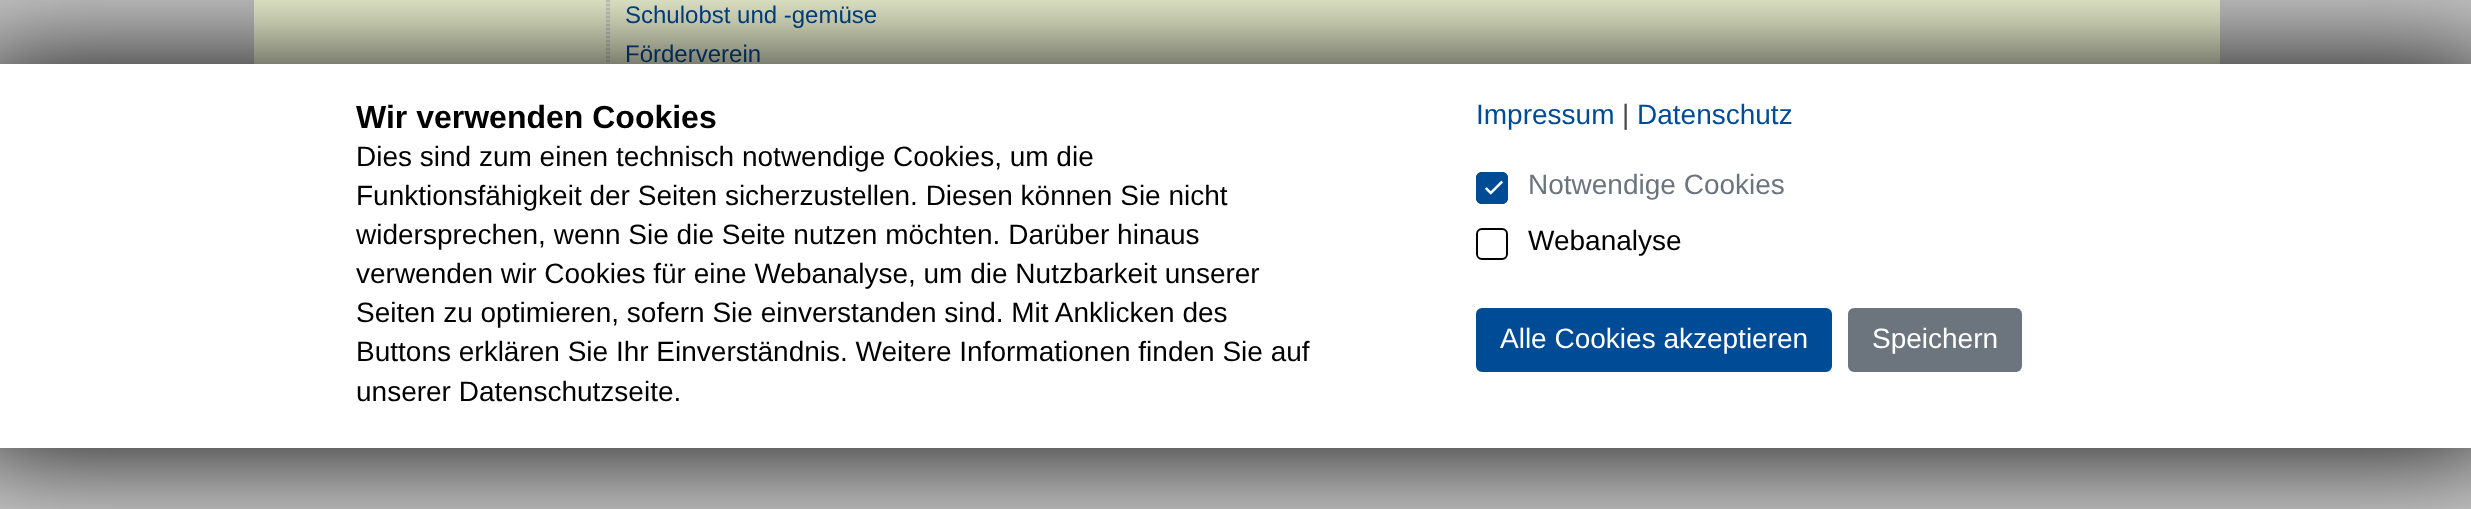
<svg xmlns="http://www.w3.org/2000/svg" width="2471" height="509">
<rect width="100%" height="100%" fill="#ccc"/>
<rect x="254" width="1966" height="64" fill="#f9ffdd"/>
<image x="606" y="0" width="4" height="64" href="media/1.png"/>
<text x="625" y="23" style="font-family:Liberation Sans;font-size:24px;fill:#004b95">Schulobst und -gemüse</text>
<text x="625" y="62" style="font-family:Liberation Sans;font-size:24px;fill:#004b95">Förderverein</text>
<rect x="-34" y="64" width="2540" height="384" fill="#000" filter="blur(60px)"/>
<rect y="64" width="2471" height="384" fill="#fff"/>
<text x="356" y="128" style="font-family:Liberation Sans;font-size:32px;font-weight:bold;fill:#000">Wir verwenden Cookies</text>
<text x="356" y="166" style="font-family:Liberation Sans;font-size:28px;fill:#000">Dies sind zum einen technisch notwendige Cookies, um die</text>
<text x="356" y="205" style="font-family:Liberation Sans;font-size:28px;fill:#000">Funktionsfähigkeit der Seiten sicherzustellen. Diesen können Sie nicht</text>
<text x="356" y="244" style="font-family:Liberation Sans;font-size:28px;fill:#000">widersprechen, wenn Sie die Seite nutzen möchten. Darüber hinaus</text>
<text x="356" y="283" style="font-family:Liberation Sans;font-size:28px;fill:#000">verwenden wir Cookies für eine Webanalyse, um die Nutzbarkeit unserer</text>
<text x="356" y="322" style="font-family:Liberation Sans;font-size:28px;fill:#000">Seiten zu optimieren, sofern Sie einverstanden sind. Mit Anklicken des</text>
<text x="356" y="361" style="font-family:Liberation Sans;font-size:28px;fill:#000">Buttons erklären Sie Ihr Einverständnis. Weitere Informationen finden Sie auf</text>
<text x="356" y="401" style="font-family:Liberation Sans;font-size:28px;fill:#000">unserer Datenschutzseite.</text>
<text x="1476" y="124" style="font-family:Liberation Sans;font-size:28px;fill:#004b95">Impressum</text>
<text x="1622" y="124" style="font-family:Liberation Sans;font-size:28px;fill:#494949">|</text>
<text x="1637" y="124" style="font-family:Liberation Sans;font-size:28px;fill:#004b95">Datenschutz</text>
<rect x="1477" y="173" width="30" height="30" rx="5" fill="none" stroke="#000" stroke-width="2"/>
<rect x="1476" y="172" width="32" height="32" rx="6" fill="#004b95"/>
<image x="1485" y="180" width="18" height="15" href="media/2.png"/>
<text x="1528" y="194" style="font-family:Liberation Sans;font-size:28px;fill:#6c757d">Notwendige Cookies</text>
<rect x="1477" y="229" width="30" height="30" rx="5" fill="none" stroke="#000" stroke-width="2"/>
<text x="1528" y="250" style="font-family:Liberation Sans;font-size:28px;fill:#000">Webanalyse</text>
<rect x="1480" y="312" width="348" height="56" rx="2" fill="#004b95" stroke="#004b95" stroke-width="8"/>
<text x="1500" y="348" style="font-family:Liberation Sans;font-size:28px;fill:#fff">Alle Cookies akzeptieren</text>
<rect x="1852" y="312" width="166" height="56" rx="2" fill="#6c757d" stroke="#6c757d" stroke-width="8"/>
<text x="1872" y="348" style="font-family:Liberation Sans;font-size:28px;fill:#fff">Speichern</text>
</svg>
